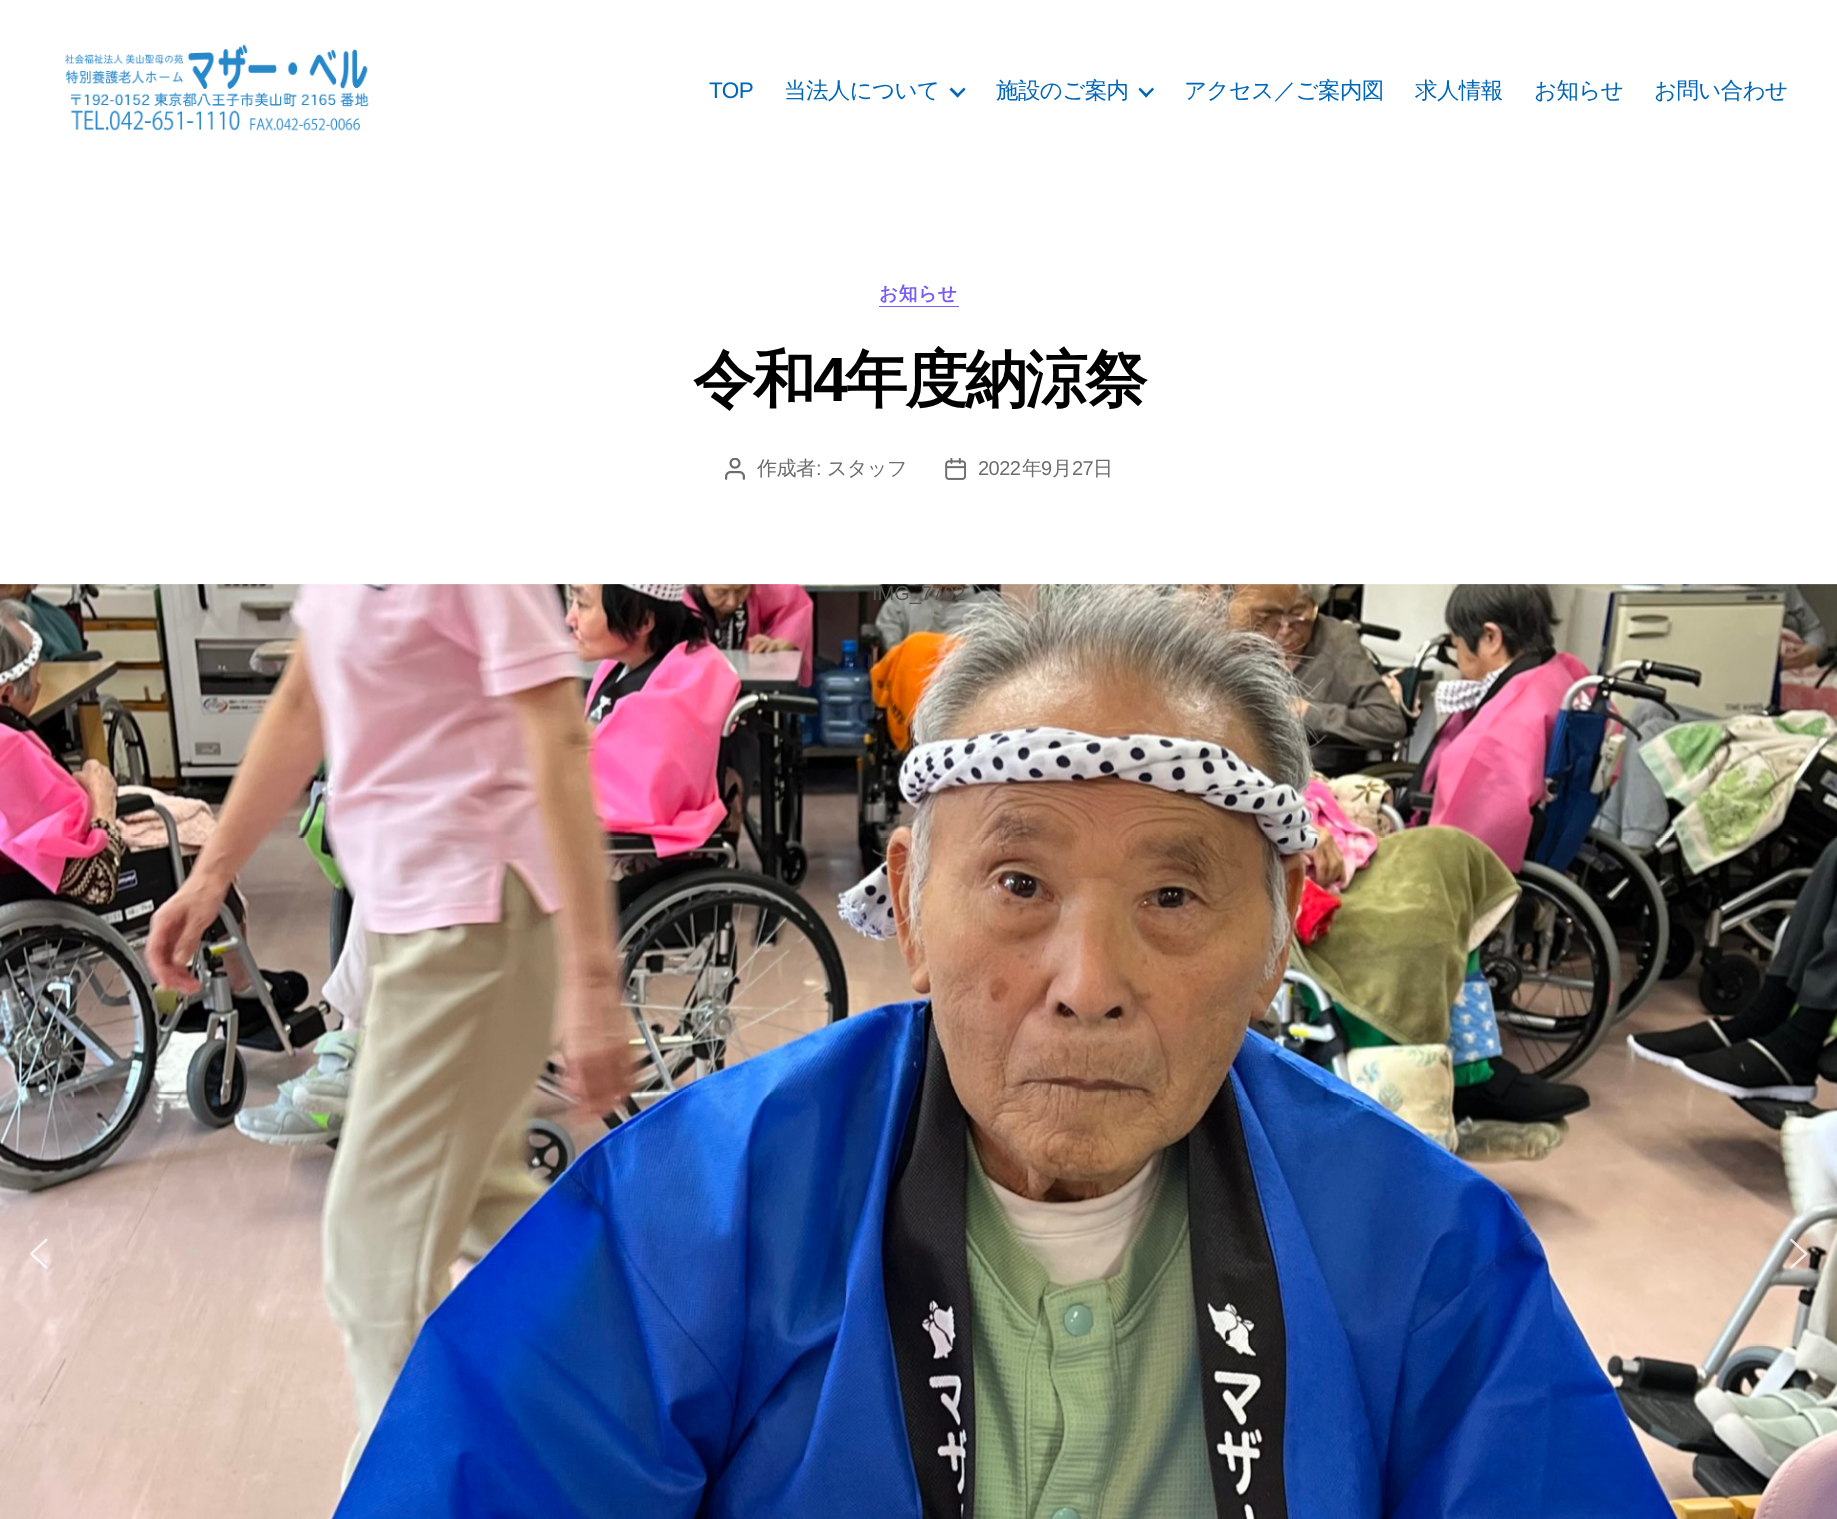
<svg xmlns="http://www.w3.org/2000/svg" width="1837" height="1519">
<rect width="100%" height="100%" fill="#fff"/>
<image x="65" y="44" width="304" height="87" href="media/1.png"/>
<text x="709" y="98" style="font-family:Liberation Sans;font-size:22.5px;letter-spacing:-0.6px;fill:#0066b8">TOP</text>
<text x="784" y="98" style="font-family:WenQuanYi Zen Hei;font-size:22.5px;font-weight:500;letter-spacing:-0.6px;fill:#0066b8">当法人について</text>
<path d="M949.5 89.5l2-2l8 8l-2 2z" fill="#0066b8"/>
<path d="M956 95.5l8-8l1.5 2l-8 8z" fill="#0066b8"/>
<text x="996" y="98" style="font-family:WenQuanYi Zen Hei;font-size:22.5px;font-weight:500;letter-spacing:-0.6px;fill:#0066b8">施設のご案内</text>
<path d="M1138.5 89.5l1.5-2l8 8l-2 2z" fill="#0066b8"/>
<path d="M1144.5 95.5l8-8l1.5 2l-8 8z" fill="#0066b8"/>
<text x="1184" y="98" style="font-family:WenQuanYi Zen Hei;font-size:22.5px;font-weight:500;letter-spacing:-0.6px;fill:#0066b8">アクセス／ご案内図</text>
<text x="1415" y="98" style="font-family:WenQuanYi Zen Hei;font-size:22.5px;font-weight:500;letter-spacing:-0.6px;fill:#0066b8">求人情報</text>
<text x="1534" y="98" style="font-family:WenQuanYi Zen Hei;font-size:22.5px;font-weight:500;letter-spacing:-0.6px;fill:#0066b8">お知らせ</text>
<text x="1654" y="98" style="font-family:WenQuanYi Zen Hei;font-size:22.5px;font-weight:500;letter-spacing:-0.6px;fill:#0066b8">お問い合わせ</text>
<rect x="879" y="306" width="80" height="1" fill="#785cf3"/>
<text x="879" y="300" style="font-family:WenQuanYi Zen Hei;font-size:18.75px;font-weight:bold;letter-spacing:0.5px;fill:#785cf3">お知らせ</text>
<text x="693" y="401" style="font-family:WenQuanYi Zen Hei;font-size:62.5px;font-weight:bold;letter-spacing:-2.5px;fill:#000">令和</text>
<text x="813" y="401" style="font-family:Liberation Sans;font-size:62.5px;font-weight:bold;letter-spacing:-2.5px;fill:#000">4</text>
<text x="845" y="401" style="font-family:WenQuanYi Zen Hei;font-size:62.5px;font-weight:bold;letter-spacing:-2.5px;fill:#000">年度納涼祭</text>
<image x="725" y="458" width="20" height="22" href="media/2.png"/>
<text x="757" y="475" style="font-family:WenQuanYi Zen Hei;font-size:20px;font-weight:500;letter-spacing:-0.5px;fill:#6d6d6d">作成者</text>
<text x="816" y="475" style="font-family:Liberation Sans;font-size:20px;letter-spacing:-0.5px;fill:#6d6d6d">:</text>
<text x="827" y="475" style="font-family:WenQuanYi Zen Hei;font-size:20px;font-weight:500;letter-spacing:-0.5px;fill:#6d6d6d">スタッフ</text>
<image x="945" y="458" width="21" height="22" href="media/3.png"/>
<text x="978" y="475" style="font-family:Liberation Sans;font-size:20px;letter-spacing:-0.5px;fill:#6d6d6d">2022</text>
<text x="1022" y="475" style="font-family:WenQuanYi Zen Hei;font-size:20px;font-weight:500;letter-spacing:-0.5px;fill:#6d6d6d">年</text>
<text x="1041" y="475" style="font-family:Liberation Sans;font-size:20px;letter-spacing:-0.5px;fill:#6d6d6d">9</text>
<text x="1052" y="475" style="font-family:WenQuanYi Zen Hei;font-size:20px;font-weight:500;letter-spacing:-0.5px;fill:#6d6d6d">月</text>
<text x="1072" y="475" style="font-family:Liberation Sans;font-size:20px;letter-spacing:-0.5px;fill:#6d6d6d">27</text>
<text x="1093" y="475" style="font-family:WenQuanYi Zen Hei;font-size:20px;font-weight:500;letter-spacing:-0.5px;fill:#6d6d6d">日</text>
<image x="0" y="584" width="1837" height="935" href="media/4.png"/>
<text x="872" y="600" style="font-family:Liberation Sans;font-size:20px;fill:#57524c">IMG_7702</text>
<image x="30" y="1238" width="18" height="31" href="media/5.png"/>
<image x="1790" y="1238" width="18" height="31" href="media/6.png"/>
</svg>
